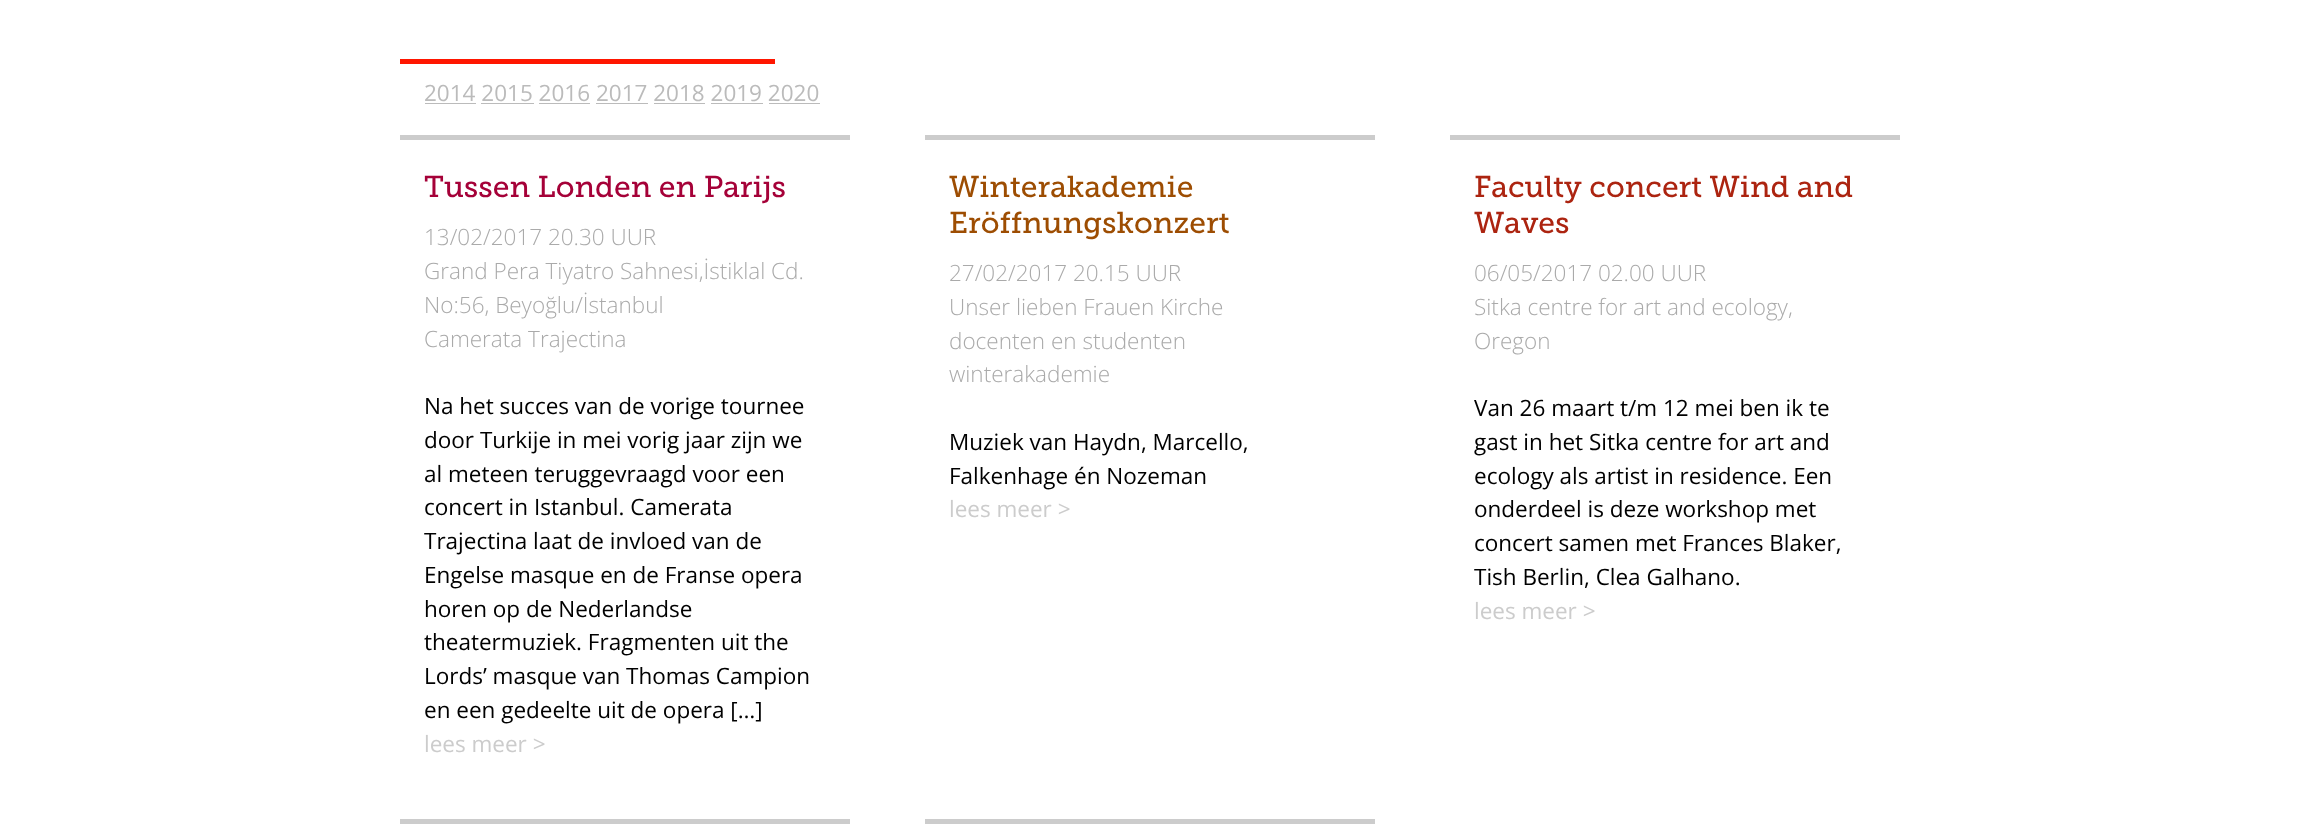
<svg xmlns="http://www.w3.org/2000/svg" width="2298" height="834">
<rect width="100%" height="100%" fill="#fff"/>
<rect x="400" y="59" width="375" height="5" fill="#ff1600"/>
<text x="424" y="101" style="font-family:Open Sans;font-size:22.5px;fill:#bbb">2014 2015 2016 2017 2018 2019 2020</text>
<rect x="425" y="103" width="51" height="1" fill="#bbb"/>
<rect x="481" y="103" width="53" height="1" fill="#bbb"/>
<rect x="539" y="103" width="51" height="1" fill="#bbb"/>
<rect x="596" y="103" width="52" height="1" fill="#bbb"/>
<rect x="654" y="103" width="51" height="1" fill="#bbb"/>
<rect x="711" y="103" width="52" height="1" fill="#bbb"/>
<rect x="769" y="103" width="51" height="1" fill="#bbb"/>
<rect x="400" y="135" width="450" height="5" fill="#ccc"/>
<text x="424" y="197" style="font-family:'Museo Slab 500';font-size:30px;fill:#a50138">Tussen Londen en Parijs</text>
<text x="424" y="245" style="font-family:Open Sans;font-size:22.5px;font-weight:300;fill:#aaa">13/02/2017 20.30 UUR</text>
<text x="424" y="279" style="font-family:Open Sans;font-size:22.5px;font-weight:300;fill:#aaa">Grand Pera Tiyatro Sahnesi,İstiklal Cd.</text>
<text x="424" y="313" style="font-family:Open Sans;font-size:22.5px;font-weight:300;fill:#aaa">No:56, Beyoğlu/İstanbul</text>
<text x="424" y="347" style="font-family:Open Sans;font-size:22.5px;font-weight:300;fill:#aaa">Camerata Trajectina</text>
<text x="424" y="414" style="font-family:Open Sans;font-size:22.5px;fill:#000">Na het succes van de vorige tournee</text>
<text x="424" y="448" style="font-family:Open Sans;font-size:22.5px;fill:#000">door Turkije in mei vorig jaar zijn we</text>
<text x="424" y="482" style="font-family:Open Sans;font-size:22.5px;fill:#000">al meteen teruggevraagd voor een</text>
<text x="424" y="515" style="font-family:Open Sans;font-size:22.5px;fill:#000">concert in Istanbul. Camerata</text>
<text x="424" y="549" style="font-family:Open Sans;font-size:22.5px;fill:#000">Trajectina laat de invloed van de</text>
<text x="424" y="583" style="font-family:Open Sans;font-size:22.5px;fill:#000">Engelse masque en de Franse opera</text>
<text x="424" y="617" style="font-family:Open Sans;font-size:22.5px;fill:#000">horen op de Nederlandse</text>
<text x="424" y="650" style="font-family:Open Sans;font-size:22.5px;fill:#000">theatermuziek. Fragmenten uit the</text>
<text x="424" y="684" style="font-family:Open Sans;font-size:22.5px;fill:#000">Lords’ masque van Thomas Campion</text>
<text x="424" y="718" style="font-family:Open Sans;font-size:22.5px;fill:#000">en een gedeelte uit de opera […]</text>
<text x="424" y="752" style="font-family:Open Sans;font-size:22.5px;fill:#ccc">lees meer &gt;</text>
<rect x="925" y="135" width="450" height="5" fill="#ccc"/>
<text x="949" y="197" style="font-family:'Museo Slab 500';font-size:30px;fill:#9d4d02">Winterakademie</text>
<text x="949" y="233" style="font-family:'Museo Slab 500';font-size:30px;fill:#9d4d02">Eröffnungskonzert</text>
<text x="949" y="281" style="font-family:Open Sans;font-size:22.5px;font-weight:300;fill:#aaa">27/02/2017 20.15 UUR</text>
<text x="949" y="315" style="font-family:Open Sans;font-size:22.5px;font-weight:300;fill:#aaa">Unser lieben Frauen Kirche</text>
<text x="949" y="349" style="font-family:Open Sans;font-size:22.5px;font-weight:300;fill:#aaa">docenten en studenten</text>
<text x="949" y="382" style="font-family:Open Sans;font-size:22.5px;font-weight:300;fill:#aaa">winterakademie</text>
<text x="949" y="450" style="font-family:Open Sans;font-size:22.5px;fill:#000">Muziek van Haydn, Marcello,</text>
<text x="949" y="484" style="font-family:Open Sans;font-size:22.5px;fill:#000">Falkenhage én Nozeman</text>
<text x="949" y="517" style="font-family:Open Sans;font-size:22.5px;fill:#ccc">lees meer &gt;</text>
<rect x="1450" y="135" width="450" height="5" fill="#ccc"/>
<text x="1474" y="197" style="font-family:'Museo Slab 500';font-size:30px;fill:#ac2410">Faculty concert Wind and</text>
<text x="1474" y="233" style="font-family:'Museo Slab 500';font-size:30px;fill:#ac2410">Waves</text>
<text x="1474" y="281" style="font-family:Open Sans;font-size:22.5px;font-weight:300;fill:#aaa">06/05/2017 02.00 UUR</text>
<text x="1474" y="315" style="font-family:Open Sans;font-size:22.5px;font-weight:300;fill:#aaa">Sitka centre for art and ecology,</text>
<text x="1474" y="349" style="font-family:Open Sans;font-size:22.5px;font-weight:300;fill:#aaa">Oregon</text>
<text x="1474" y="416" style="font-family:Open Sans;font-size:22.5px;fill:#000">Van 26 maart t/m 12 mei ben ik te</text>
<text x="1474" y="450" style="font-family:Open Sans;font-size:22.5px;fill:#000">gast in het Sitka centre for art and</text>
<text x="1474" y="484" style="font-family:Open Sans;font-size:22.5px;fill:#000">ecology als artist in residence. Een</text>
<text x="1474" y="517" style="font-family:Open Sans;font-size:22.5px;fill:#000">onderdeel is deze workshop met</text>
<text x="1474" y="551" style="font-family:Open Sans;font-size:22.5px;fill:#000">concert samen met Frances Blaker,</text>
<text x="1474" y="585" style="font-family:Open Sans;font-size:22.5px;fill:#000">Tish Berlin, Clea Galhano.</text>
<text x="1474" y="619" style="font-family:Open Sans;font-size:22.5px;fill:#ccc">lees meer &gt;</text>
<rect x="400" y="819" width="450" height="5" fill="#ccc"/>
<rect x="925" y="819" width="450" height="5" fill="#ccc"/>
</svg>
